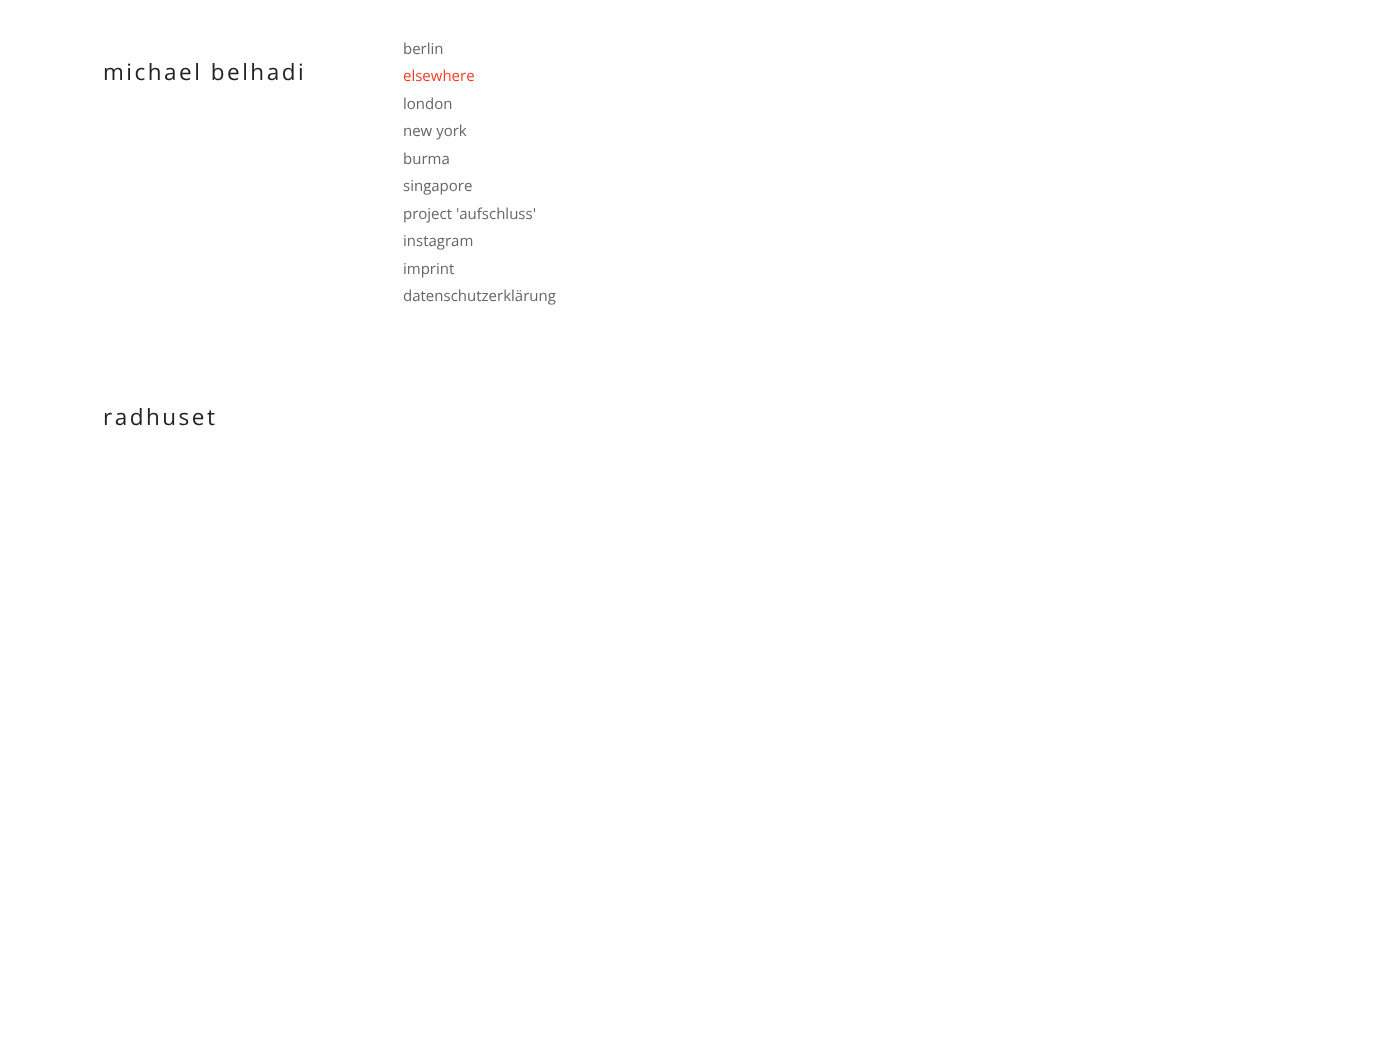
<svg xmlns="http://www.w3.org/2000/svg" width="1381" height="1063">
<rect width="100%" height="100%" fill="#fff"/>
<text x="103" y="80" style="font-family:Open Sans;font-size:22.5px;letter-spacing:2.5px;fill:#222">michael belhadi</text>
<text x="403" y="54" style="font-family:Open Sans;font-size:15px;fill:#666">berlin</text>
<text x="403" y="81" style="font-family:Open Sans;font-size:15px;fill:#fa3c24">elsewhere</text>
<text x="403" y="109" style="font-family:Open Sans;font-size:15px;fill:#666">london</text>
<text x="403" y="136" style="font-family:Open Sans;font-size:15px;fill:#666">new york</text>
<text x="403" y="164" style="font-family:Open Sans;font-size:15px;fill:#666">burma</text>
<text x="403" y="191" style="font-family:Open Sans;font-size:15px;fill:#666">singapore</text>
<text x="403" y="219" style="font-family:Open Sans;font-size:15px;fill:#666">project 'aufschluss'</text>
<text x="403" y="246" style="font-family:Open Sans;font-size:15px;fill:#666">instagram</text>
<text x="403" y="274" style="font-family:Open Sans;font-size:15px;fill:#666">imprint</text>
<text x="403" y="301" style="font-family:Open Sans;font-size:15px;fill:#666">datenschutzerklärung</text>
<text x="103" y="425" style="font-family:Open Sans;font-size:22.5px;letter-spacing:2.5px;fill:#222">radhuset</text>
</svg>
